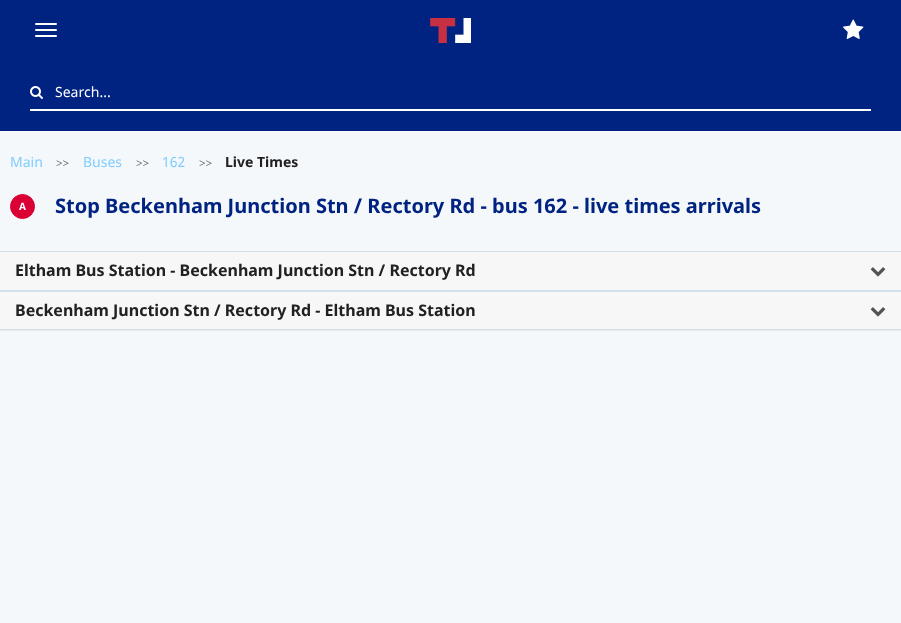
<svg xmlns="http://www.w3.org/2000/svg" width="901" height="623">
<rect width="100%" height="100%" fill="#f5f8fa"/>
<rect width="901" height="131" fill="#002382"/>
<rect x="35" y="23" width="22" height="2" rx="1" fill="#fff"/>
<rect x="35" y="29" width="22" height="2" rx="1" fill="#fff"/>
<rect x="35" y="35" width="22" height="2" rx="1" fill="#fff"/>
<image x="430" y="18" width="41" height="25" href="media/1.png"/>
<image x="843" y="19" width="21" height="20" href="media/2.png"/>
<rect x="30" y="109" width="841" height="2" fill="#fff"/>
<image x="30" y="86" width="13" height="13" href="media/3.png"/>
<text x="55" y="97" style="font-family:Noto Sans;font-size:14px;fill:#fff">Search...</text>
<text x="10" y="167" style="font-family:Noto Sans;font-size:14px;fill:#80ccff">Main</text>
<text x="56" y="167" style="font-family:Noto Sans;font-size:12px;fill:#636b6f">&gt;&gt;</text>
<text x="83" y="167" style="font-family:Noto Sans;font-size:14px;fill:#80ccff">Buses</text>
<text x="136" y="167" style="font-family:Noto Sans;font-size:12px;fill:#636b6f">&gt;&gt;</text>
<text x="162" y="167" style="font-family:Noto Sans;font-size:14px;fill:#80ccff">162</text>
<text x="199" y="167" style="font-family:Noto Sans;font-size:12px;fill:#636b6f">&gt;&gt;</text>
<text x="225" y="167" style="font-family:Noto Sans;font-size:14px;font-weight:bold;fill:#212121">Live Times</text>
<circle cx="22.5" cy="206.5" r="12" fill="#da0034" stroke="#da0034"/>
<text x="19" y="210" style="font-family:Noto Sans;font-size:10px;font-weight:bold;fill:#fff">A</text>
<text x="55" y="213" style="font-family:Noto Sans;font-size:20px;font-weight:bold;fill:#002382">Stop Beckenham Junction Stn / Rectory Rd - bus 162 - live times arrivals</text>
<rect y="251" width="901" height="1" fill="#d3e0e9"/>
<rect y="290" width="901" height="1" fill="#d3e0e9"/>
<rect y="292" width="901" height="39" fill="#0000000d" filter="blur(0.5px)"/>
<rect y="252" width="901" height="38" fill="#f7f7f7"/>
<text x="15" y="276" style="font-family:Noto Sans;font-size:16px;font-weight:bold;fill:#212121">Eltham Bus Station - Beckenham Junction Stn / Rectory Rd</text>
<image x="870" y="267" width="16" height="10" href="media/4.png"/>
<rect y="291" width="901" height="1" fill="#d3e0e9"/>
<rect y="329" width="901" height="1" fill="#d3e0e9"/>
<rect y="292" width="901" height="37" fill="#f7f7f7"/>
<text x="15" y="316" style="font-family:Noto Sans;font-size:16px;font-weight:bold;fill:#212121">Beckenham Junction Stn / Rectory Rd - Eltham Bus Station</text>
<image x="870" y="307" width="16" height="10" href="media/4.png"/>
</svg>
